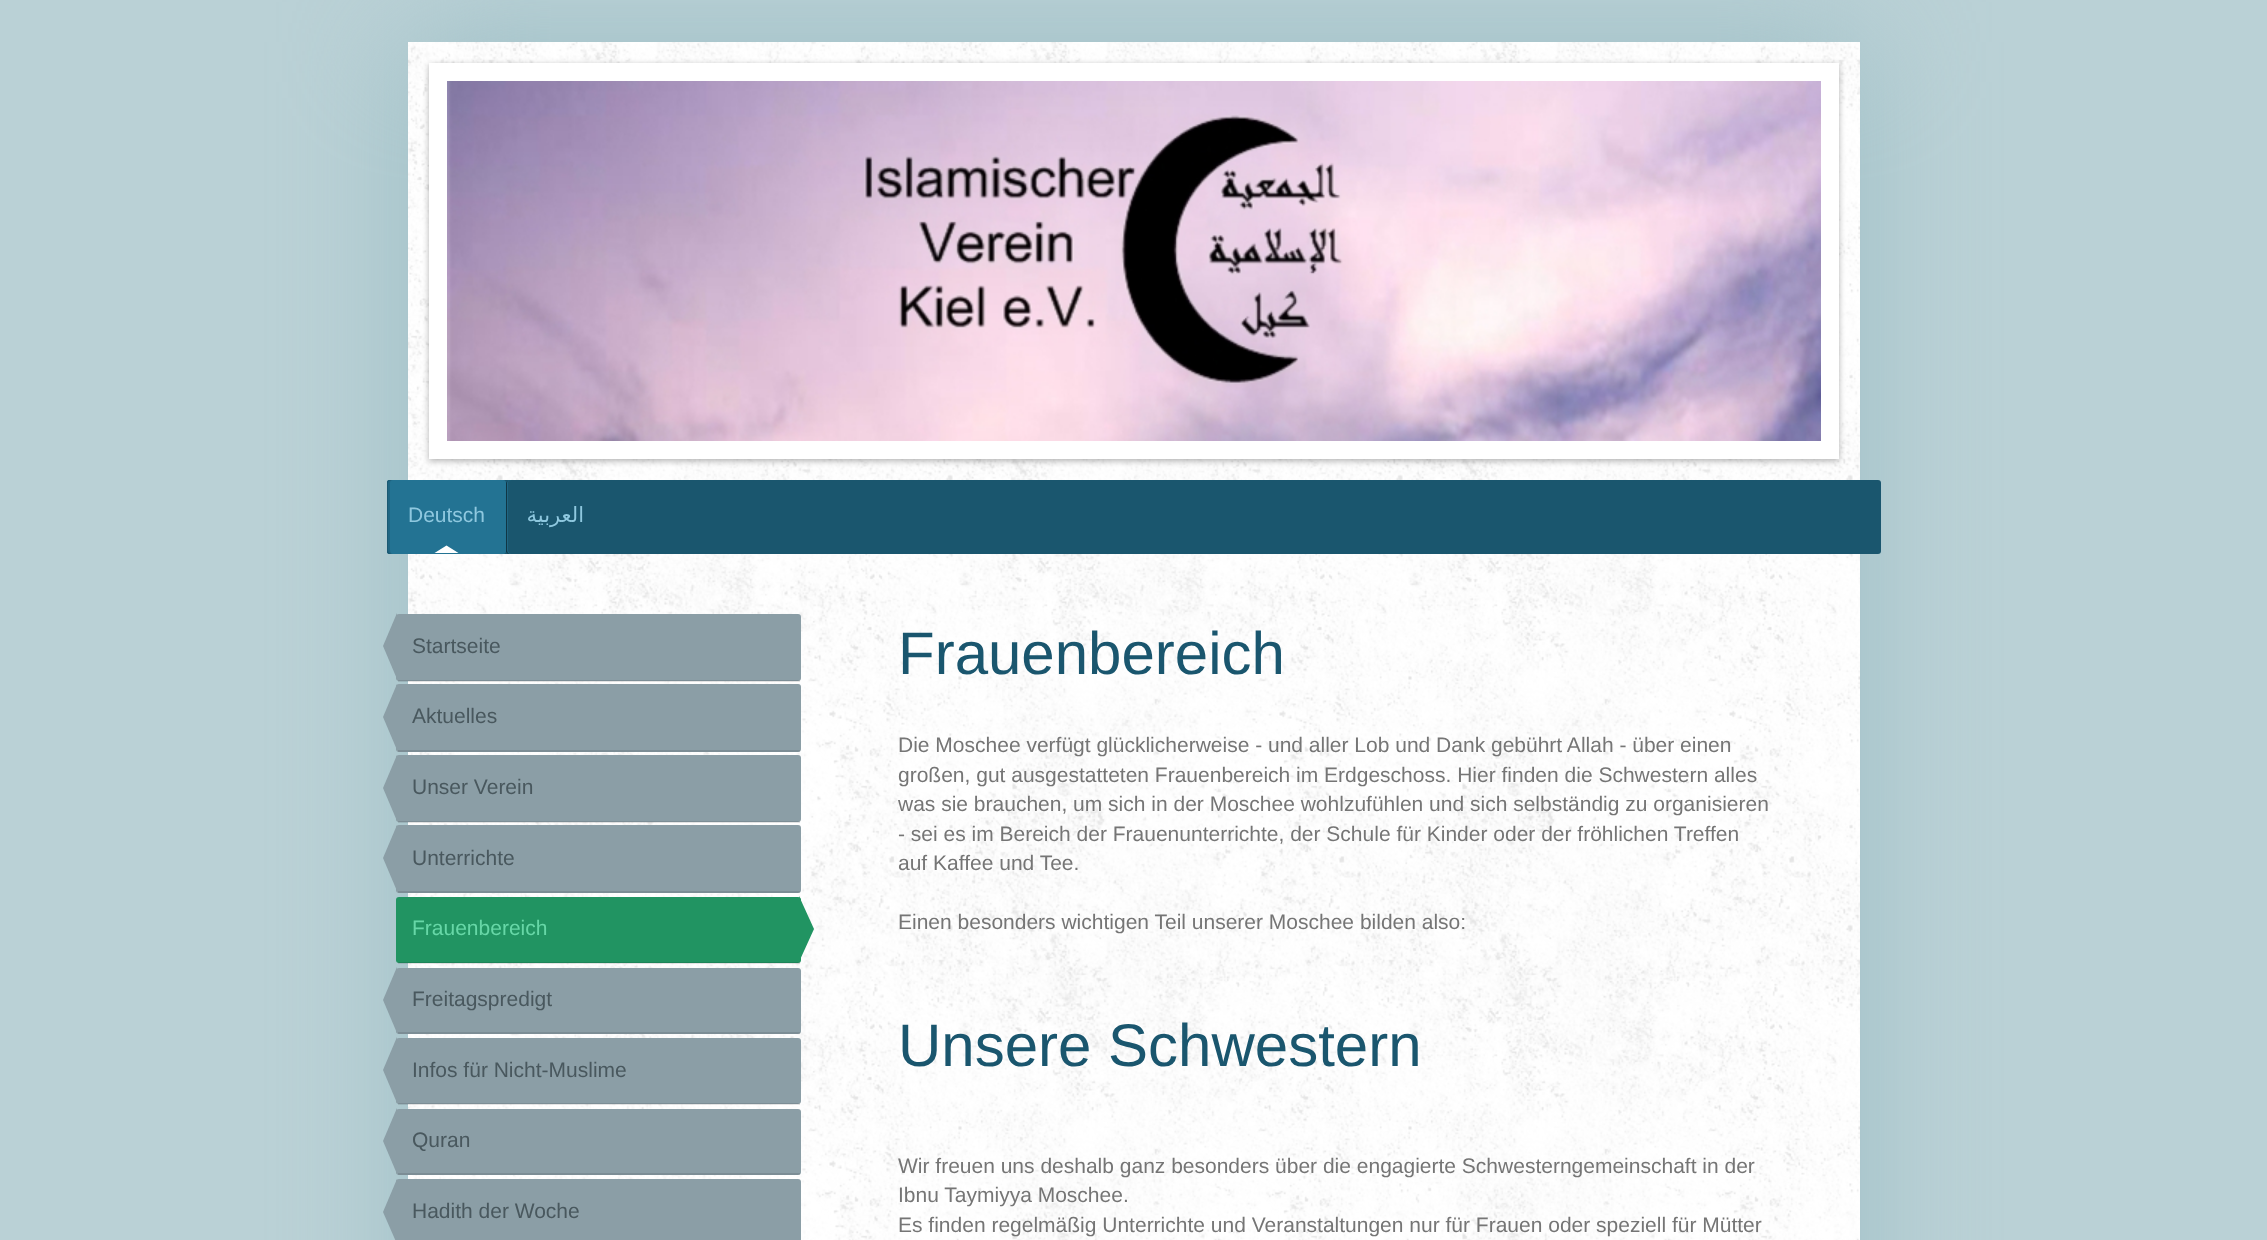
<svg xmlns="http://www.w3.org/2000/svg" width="2267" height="1240">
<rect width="100%" height="100%" fill="#bad1d6"/>
<rect x="408" y="42" width="1452" height="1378" fill="#9dbec5" filter="blur(60px)"/>
<rect x="408" y="42" width="1452" height="1198" fill="#fff"/>
<image x="408" y="42" width="1452" height="1198" href="media/1.png"/>
<rect x="429" y="65" width="1410" height="396" fill="#0000004d" filter="blur(3px)"/>
<rect x="438" y="72" width="1392" height="378" fill="none" stroke="#fff" stroke-width="18"/>
<image x="447" y="81" width="1374" height="360" href="media/2.png"/>
<rect x="387" y="480" width="1494" height="74" rx="3" fill="#1a566e"/>
<rect x="387" y="480" width="119" height="74" rx="3" fill="#237393"/>
<path d="M390 480c-2 0-3 1-3 3v68c0 2 1 3 3 3h3c-2 0-3-2-3-4v-67c0-2 1-3 3-3z" fill="#1f6683"/>
<path d="M390 480c-2 0-3 1-3 3v68c0 2 1 3 3 3h2c-2 0-4-2-4-4v-67c0-2 2-3 4-3z" fill="#1b5972"/>
<text x="408" y="522" style="font-family:Liberation Sans;font-size:21px;fill:#8fc8df">Deutsch</text>
<path d="M458.5 553h-24l12-7.5z" fill="#fff"/>
<path d="M509 480c-2 0-3 1-3 3v68c0 2 1 3 3 3h3c-2 0-4-2-4-4v-67c0-2 2-3 4-3z" fill="#1f6683"/>
<path d="M509 480l-2 1l-1 2v69l2 2h2c-2 0-3-2-3-4v-67c0-2 1-3 3-3z" fill="#103645"/>
<text x="584" y="522" style="font-family:DejaVu Sans;font-size:21px;direction:rtl;fill:#8fc8df">العربية</text>
<rect x="396" y="614" width="405" height="67" rx="3" fill="#8b9ea6"/>
<rect x="398" y="680" width="402" height="2" fill="#0000001a"/>
<path d="M397 613v66l-14-33z" fill="#8b9ea6"/>
<text x="412" y="653" style="font-family:Liberation Sans;font-size:21px;fill:#49585e">Startseite</text>
<rect x="396" y="684" width="405" height="68" rx="3" fill="#8b9ea6"/>
<rect x="398" y="750" width="402" height="2" fill="#0000001a"/>
<path d="M397 684v66l-14-33z" fill="#8b9ea6"/>
<text x="412" y="723" style="font-family:Liberation Sans;font-size:21px;fill:#49585e">Aktuelles</text>
<rect x="396" y="755" width="405" height="67" rx="3" fill="#8b9ea6"/>
<rect x="398" y="821" width="402" height="2" fill="#0000001a"/>
<path d="M397 755v66l-14-33z" fill="#8b9ea6"/>
<text x="412" y="794" style="font-family:Liberation Sans;font-size:21px;fill:#49585e">Unser Verein</text>
<rect x="396" y="825" width="405" height="68" rx="3" fill="#8b9ea6"/>
<rect x="398" y="891" width="402" height="2" fill="#0000001a"/>
<path d="M397 825v66l-14-33z" fill="#8b9ea6"/>
<text x="412" y="865" style="font-family:Liberation Sans;font-size:21px;fill:#49585e">Unterrichte</text>
<rect x="396" y="897" width="405" height="66" rx="3" fill="#219462"/>
<rect x="398" y="962" width="402" height="2" fill="#0000001a"/>
<text x="412" y="935" style="font-family:Liberation Sans;font-size:21px;fill:#67d7a7">Frauenbereich</text>
<path d="M799 962v-66l15 33z" fill="#219462"/>
<rect x="396" y="968" width="405" height="66" rx="3" fill="#8b9ea6"/>
<rect x="398" y="1032" width="402" height="2" fill="#0000001a"/>
<path d="M397 967v66l-14-33z" fill="#8b9ea6"/>
<text x="412" y="1006" style="font-family:Liberation Sans;font-size:21px;fill:#49585e">Freitagspredigt</text>
<rect x="396" y="1038" width="405" height="66" rx="3" fill="#8b9ea6"/>
<rect x="398" y="1103" width="402" height="2" fill="#0000001a"/>
<path d="M397 1037v66l-14-33z" fill="#8b9ea6"/>
<text x="412" y="1077" style="font-family:Liberation Sans;font-size:21px;fill:#49585e">Infos für Nicht-Muslime</text>
<rect x="396" y="1109" width="405" height="66" rx="3" fill="#8b9ea6"/>
<rect x="398" y="1173" width="402" height="2" fill="#0000001a"/>
<path d="M397 1108v66l-14-33z" fill="#8b9ea6"/>
<text x="412" y="1147" style="font-family:Liberation Sans;font-size:21px;fill:#49585e">Quran</text>
<rect x="396" y="1179" width="405" height="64" rx="3" fill="#8b9ea6"/>
<path d="M397 1179v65l-14-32z" fill="#8b9ea6"/>
<text x="412" y="1218" style="font-family:Liberation Sans;font-size:21px;fill:#49585e">Hadith der Woche</text>
<text x="898" y="674" style="font-family:Liberation Sans;font-size:60px;fill:#1a566e">Frauenbereich</text>
<text x="898" y="752" style="font-family:Liberation Sans;font-size:21px;fill:#757575">Die Moschee verfügt glücklicherweise - und aller Lob und Dank gebührt Allah - über einen</text>
<text x="898" y="782" style="font-family:Liberation Sans;font-size:21px;fill:#757575">großen, gut ausgestatteten Frauenbereich im Erdgeschoss. Hier finden die Schwestern alles</text>
<text x="898" y="811" style="font-family:Liberation Sans;font-size:21px;fill:#757575">was sie brauchen, um sich in der Moschee wohlzufühlen und sich selbständig zu organisieren</text>
<text x="898" y="841" style="font-family:Liberation Sans;font-size:21px;fill:#757575">- sei es im Bereich der Frauenunterrichte, der Schule für Kinder oder der fröhlichen Treffen</text>
<text x="898" y="870" style="font-family:Liberation Sans;font-size:21px;fill:#757575">auf Kaffee und Tee.</text>
<text x="898" y="929" style="font-family:Liberation Sans;font-size:21px;fill:#757575">Einen besonders wichtigen Teil unserer Moschee bilden also:</text>
<text x="898" y="1066" style="font-family:Liberation Sans;font-size:60px;fill:#1a566e">Unsere Schwestern</text>
<text x="898" y="1173" style="font-family:Liberation Sans;font-size:21px;fill:#757575">Wir freuen uns deshalb ganz besonders über die engagierte Schwesterngemeinschaft in der</text>
<text x="898" y="1202" style="font-family:Liberation Sans;font-size:21px;fill:#757575">Ibnu Taymiyya Moschee.</text>
<text x="898" y="1232" style="font-family:Liberation Sans;font-size:21px;fill:#757575">Es finden regelmäßig Unterrichte und Veranstaltungen nur für Frauen oder speziell für Mütter</text>
</svg>
